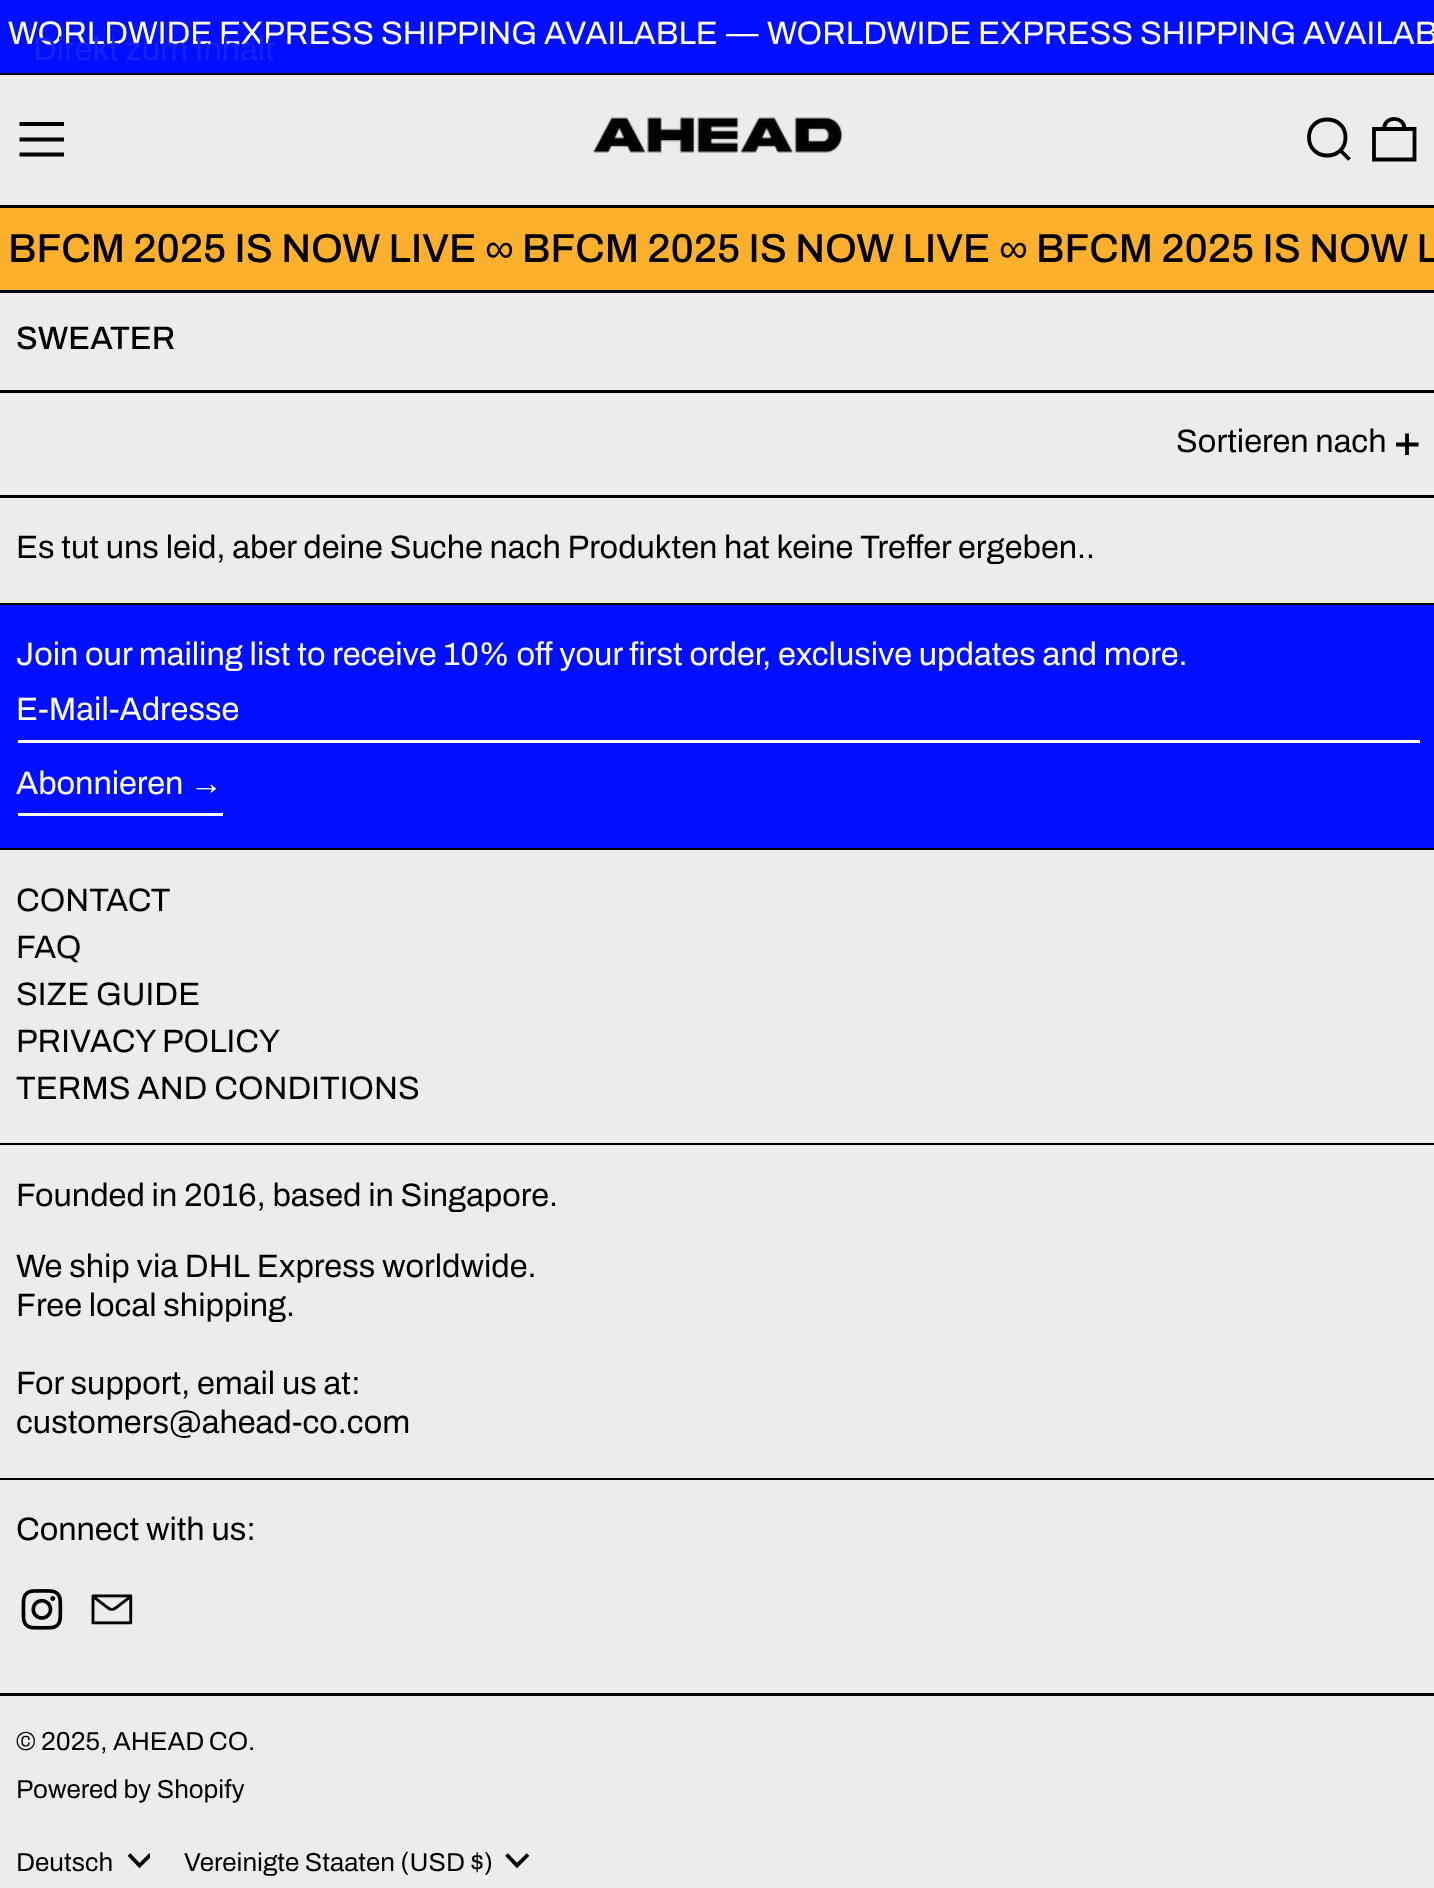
<svg xmlns="http://www.w3.org/2000/svg" width="1434" height="1888">
<defs>
<clipPath id="clip1"><rect x="1395" y="433" width="25" height="22"/></clipPath>
<clipPath id="clip2"><rect x="128" y="1848" width="22" height="25"/></clipPath>
</defs>
<rect width="100%" height="100%" fill="#ececec"/>
<rect width="1434" height="73" fill="#000fff"/>
<rect y="73" width="1434" height="2" fill="#000"/>
<text x="8" y="44" style="font-family:Archivo;font-size:32.5px;fill:#fff">WORLDWIDE EXPRESS SHIPPING AVAILABLE</text>
<text x="726" y="44" style="font-family:Archivo;font-size:32.5px;fill:#fff">—</text>
<text x="767" y="44" style="font-family:Archivo;font-size:32.5px;fill:#fff">WORLDWIDE EXPRESS SHIPPING AVAILAB</text>
<text x="33" y="60" style="font-family:Archivo;font-size:32.5px;fill:#1623ff">Direkt zum Inhalt</text>
<rect y="205" width="1434" height="3" fill="#000"/>
<path d="M19.5 124h44.5m-44.5 15.5h44.5m-44.5 15h44.5" fill="none" stroke="#000" stroke-width="3.8"/>
<image x="593" y="117" width="250" height="36" href="media/1.png"/>
<path d="M1309 137.5c0 24 36.5 24 36.5 0c0-24-36.5-24-36.5 0zm31.5 13l9 9" fill="none" stroke="#000" stroke-width="3.8"/>
<path d="M1374 129h40.5v30.5h-40.5zm30.5 0c0-13.5-20.5-13.5-20.5 0" fill="none" stroke="#000" stroke-width="3.8"/>
<rect y="208" width="1434" height="82" fill="#fcb02d"/>
<rect y="290" width="1434" height="3" fill="#000"/>
<text x="8" y="262" style="font-family:Archivo;font-size:40.6px;font-weight:500;fill:#000">BFCM 2025 IS NOW LIVE</text>
<text x="485" y="262" style="font-family:Liberation Sans;font-size:40.6px;fill:#000">∞</text>
<text x="522" y="262" style="font-family:Archivo;font-size:40.6px;font-weight:500;fill:#000">BFCM 2025 IS NOW LIVE</text>
<text x="999" y="262" style="font-family:Liberation Sans;font-size:40.6px;fill:#000">∞</text>
<text x="1036" y="262" style="font-family:Archivo;font-size:40.6px;font-weight:500;fill:#000">BFCM 2025 IS NOW L</text>
<rect y="603" width="1434" height="2" fill="#000"/>
<rect y="390" width="1434" height="3" fill="#000"/>
<text x="16" y="349" style="font-family:Archivo;font-size:32.5px;font-weight:500;fill:#000">SWEATER</text>
<rect y="495" width="1434" height="3" fill="#000"/>
<text x="1176" y="452" style="font-family:Archivo;font-size:32.5px;fill:#000">Sortieren nach</text>
<g clip-path="url(#clip1)">
<path d="M1407 433.5v22.5m-11-11.5h22.5" fill="none" stroke="#000" stroke-width="3.8"/>
</g>
<text x="16" y="558" style="font-family:Archivo;font-size:32.5px;fill:#000">Es tut uns leid, aber deine Suche nach Produkten hat keine Treffer ergeben..</text>
<rect y="605" width="1434" height="243" fill="#000fff"/>
<rect y="848" width="1434" height="2" fill="#000"/>
<text x="16" y="665" style="font-family:Archivo;font-size:32.5px;fill:#fff">Join our mailing list to receive 10% off your first order, exclusive updates and more.</text>
<rect x="18" y="740" width="1402" height="3" fill="#fff"/>
<text x="16" y="720" style="font-family:Archivo;font-size:32.5px;fill:#fff">E-Mail-Adresse</text>
<rect x="18" y="813" width="205" height="3" fill="#fff"/>
<text x="16" y="794" style="font-family:Archivo;font-size:32.5px;fill:#fff">Abonnieren</text>
<text x="190" y="794" style="font-family:Liberation Sans;font-size:32.5px;fill:#fff">→</text>
<rect y="1693" width="1434" height="3" fill="#000"/>
<rect y="1143" width="1434" height="337" fill="#000"/>
<text x="16" y="911" style="font-family:Archivo;font-size:32.5px;fill:#000">CONTACT</text>
<text x="16" y="958" style="font-family:Archivo;font-size:32.5px;fill:#000">FAQ</text>
<text x="16" y="1005" style="font-family:Archivo;font-size:32.5px;fill:#000">SIZE GUIDE</text>
<text x="16" y="1052" style="font-family:Archivo;font-size:32.5px;fill:#000">PRIVACY POLICY</text>
<text x="16" y="1099" style="font-family:Archivo;font-size:32.5px;fill:#000">TERMS AND CONDITIONS</text>
<rect y="1145" width="1434" height="333" fill="#ececec"/>
<text x="16" y="1206" style="font-family:Archivo;font-size:32.5px;fill:#000">Founded in 2016, based in Singapore.</text>
<text x="16" y="1277" style="font-family:Archivo;font-size:32.5px;fill:#000">We ship via DHL Express worldwide.</text>
<text x="16" y="1316" style="font-family:Archivo;font-size:32.5px;fill:#000">Free local shipping.</text>
<text x="16" y="1394" style="font-family:Archivo;font-size:32.5px;fill:#000">For support, email us at:</text>
<text x="16" y="1433" style="font-family:Archivo;font-size:32.5px;fill:#000">customers@ahead-co.com</text>
<text x="16" y="1540" style="font-family:Archivo;font-size:32.5px;fill:#000">Connect with us:</text>
<image x="21" y="1589" width="42" height="41" href="media/2.png"/>
<image x="91" y="1594" width="42" height="31" href="media/3.png"/>
<text x="16" y="1750" style="font-family:Archivo;font-size:26px;fill:#000">© 2025,</text>
<text x="113" y="1750" word-spacing="-1" style="font-family:Archivo;font-size:26px;fill:#000">AHEAD CO</text>
<text x="248" y="1750" style="font-family:Archivo;font-size:26px;fill:#000">.</text>
<text x="16" y="1798" style="font-family:Archivo;font-size:26px;fill:#000">Powered by Shopify</text>
<text x="16" y="1871" style="font-family:Archivo;font-size:26px;fill:#000">Deutsch</text>
<g clip-path="url(#clip2)">
<path d="M129 1854.5l10.5 11l11-11" fill="none" stroke="#000" stroke-width="3.8"/>
</g>
<text x="184" y="1871" style="font-family:Archivo;font-size:26px;fill:#000">Vereinigte Staaten (USD $)</text>
<path d="M506.5 1854.5l10.5 11l11-11" fill="none" stroke="#000" stroke-width="3.8"/>
</svg>
